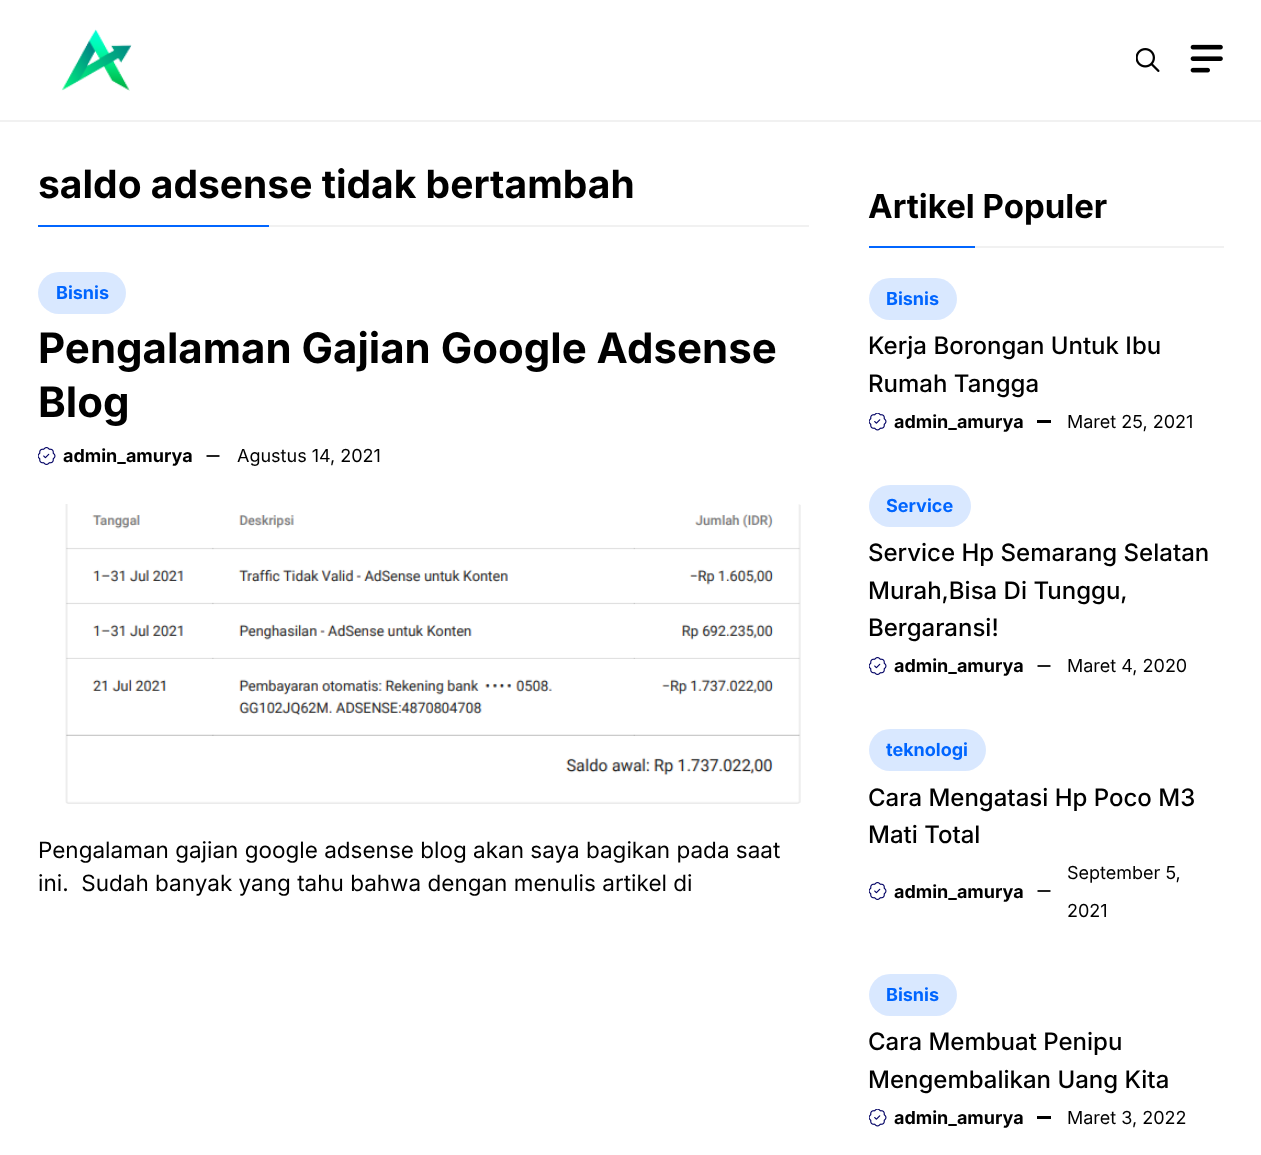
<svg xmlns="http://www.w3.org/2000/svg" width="1261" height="1155">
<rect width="100%" height="100%" fill="#fff"/>
<rect y="120" width="1261" height="2" fill="#f1f1f1"/>
<image x="61" y="29" width="71" height="62" href="media/1.png"/>
<image x="1136" y="48" width="24" height="24" href="media/2.png"/>
<image x="1190" y="44" width="33" height="29" href="media/3.png"/>
<rect x="269" y="225" width="540" height="2" fill="#f1f1f1"/>
<text x="38" y="198" style="font-family:Inter;font-size:39px;font-weight:bold;fill:#000">saldo adsense tidak bertambah</text>
<rect x="38" y="225" width="231" height="2" fill="#0166ff"/>
<text x="56" y="299" style="font-family:Inter;font-size:18px;font-weight:bold;fill:#0166ff">Bisnis</text>
<rect x="38" y="272" width="88" height="42" rx="21" fill="#0166ff26"/>
<text x="38" y="363" style="font-family:Inter;font-size:42px;font-weight:bold;fill:#000">Pengalaman Gajian Google Adsense</text>
<text x="38" y="417" style="font-family:Inter;font-size:42px;font-weight:bold;fill:#000">Blog</text>
<image x="38" y="447" width="18" height="18" href="media/4.png"/>
<text x="63" y="462" style="font-family:Inter;font-size:18px;font-weight:bold;fill:#000">admin_amurya</text>
<image x="206" y="455" width="14" height="2" href="media/5.png"/>
<text x="237" y="462" style="font-family:Inter;font-size:18px;fill:#000">Agustus 14, 2021</text>
<image x="65" y="504" width="736" height="300" href="media/6.png"/>
<text x="38" y="858" style="font-family:Inter;font-size:22.5px;fill:#000">Pengalaman gajian google adsense blog akan saya bagikan pada saat</text>
<text x="38" y="891" style="font-family:Inter;font-size:22.5px;fill:#000" xml:space="preserve">ini.  Sudah banyak yang tahu bahwa dengan menulis artikel di</text>
<rect x="975" y="246" width="249" height="2" fill="#f1f1f1"/>
<text x="868" y="218" style="font-family:Inter;font-size:33px;font-weight:bold;fill:#000">Artikel Populer</text>
<rect x="869" y="246" width="106" height="2" fill="#0166ff"/>
<text x="886" y="305" style="font-family:Inter;font-size:18px;font-weight:bold;fill:#0166ff">Bisnis</text>
<rect x="869" y="278" width="88" height="42" rx="21" fill="#0166ff26"/>
<text x="868" y="354" style="font-family:Inter;font-size:24px;font-weight:500;fill:#000">Kerja Borongan Untuk Ibu</text>
<text x="868" y="392" style="font-family:Inter;font-size:24px;font-weight:500;fill:#000">Rumah Tangga</text>
<image x="869" y="413" width="18" height="18" href="media/7.png"/>
<text x="894" y="428" style="font-family:Inter;font-size:18px;font-weight:bold;fill:#000">admin_amurya</text>
<rect x="1037" y="420" width="14" height="3" fill="#000"/>
<text x="1067" y="428" style="font-family:Inter;font-size:18px;fill:#000">Maret 25, 2021</text>
<text x="886" y="512" style="font-family:Inter;font-size:18px;font-weight:bold;fill:#0166ff">Service</text>
<rect x="869" y="485" width="102" height="42" rx="21" fill="#0166ff26"/>
<text x="868" y="561" style="font-family:Inter;font-size:24px;font-weight:500;fill:#000">Service Hp Semarang Selatan</text>
<text x="868" y="599" style="font-family:Inter;font-size:24px;font-weight:500;fill:#000">Murah,Bisa Di Tunggu,</text>
<text x="868" y="636" style="font-family:Inter;font-size:24px;font-weight:500;fill:#000">Bergaransi!</text>
<image x="869" y="657" width="18" height="18" href="media/4.png"/>
<text x="894" y="672" style="font-family:Inter;font-size:18px;font-weight:bold;fill:#000">admin_amurya</text>
<image x="1037" y="665" width="14" height="2" href="media/5.png"/>
<text x="1067" y="672" style="font-family:Inter;font-size:18px;fill:#000">Maret 4, 2020</text>
<text x="886" y="756" style="font-family:Inter;font-size:18px;font-weight:bold;fill:#0166ff">teknologi</text>
<rect x="869" y="729" width="117" height="42" rx="21" fill="#0166ff26"/>
<text x="868" y="806" style="font-family:Inter;font-size:24px;font-weight:500;fill:#000">Cara Mengatasi Hp Poco M3</text>
<text x="868" y="843" style="font-family:Inter;font-size:24px;font-weight:500;fill:#000">Mati Total</text>
<image x="869" y="882" width="18" height="18" href="media/4.png"/>
<text x="894" y="898" style="font-family:Inter;font-size:18px;font-weight:bold;fill:#000">admin_amurya</text>
<image x="1037" y="890" width="14" height="2" href="media/5.png"/>
<text x="1067" y="879" style="font-family:Inter;font-size:18px;fill:#000">September 5,</text>
<text x="1067" y="917" style="font-family:Inter;font-size:18px;fill:#000">2021</text>
<text x="886" y="1001" style="font-family:Inter;font-size:18px;font-weight:bold;fill:#0166ff">Bisnis</text>
<rect x="869" y="974" width="88" height="42" rx="21" fill="#0166ff26"/>
<text x="868" y="1050" style="font-family:Inter;font-size:24px;font-weight:500;fill:#000">Cara Membuat Penipu</text>
<text x="868" y="1088" style="font-family:Inter;font-size:24px;font-weight:500;fill:#000">Mengembalikan Uang Kita</text>
<image x="869" y="1109" width="18" height="18" href="media/7.png"/>
<text x="894" y="1124" style="font-family:Inter;font-size:18px;font-weight:bold;fill:#000">admin_amurya</text>
<rect x="1037" y="1116" width="14" height="3" fill="#000"/>
<text x="1067" y="1124" style="font-family:Inter;font-size:18px;fill:#000">Maret 3, 2022</text>
</svg>
